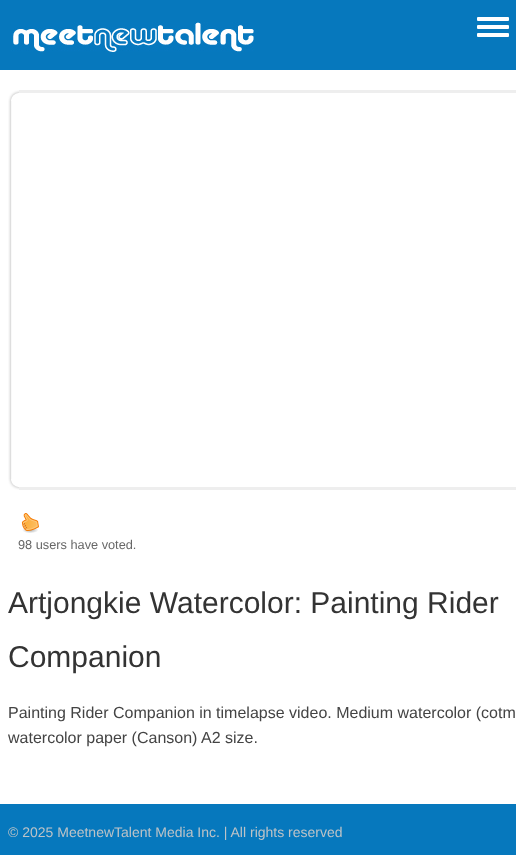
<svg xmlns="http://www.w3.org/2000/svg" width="516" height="855">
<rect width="100%" height="100%" fill="#fff"/>
<rect width="516" height="70" fill="#0678bd"/>
<image x="11" y="22" width="243" height="30" href="media/1.png"/>
<rect x="477" y="25" width="32" height="4" rx="1" fill="#fff"/>
<rect x="477" y="17" width="32" height="4" rx="1" fill="#fff"/>
<rect x="477" y="33" width="32" height="4" rx="1" fill="#fff"/>
<rect x="19" y="90" width="497" height="3" fill="#eee"/>
<image x="8" y="90" width="11" height="11" href="media/2.png"/>
<image x="8" y="101" width="4" height="378" href="media/3.png"/>
<rect x="19" y="487" width="497" height="3" fill="#eee"/>
<image x="8" y="479" width="11" height="11" href="media/4.png"/>
<image x="21" y="513" width="18" height="20" href="media/5.png"/>
<text x="18" y="549" style="font-family:Liberation Sans;font-size:12.75px;fill:#666">98 users have voted.</text>
<text x="8" y="613" style="font-family:Liberation Sans;font-size:30px;fill:#333">Artjongkie Watercolor: Painting Rider</text>
<text x="8" y="667" style="font-family:Liberation Sans;font-size:30px;fill:#333">Companion</text>
<text x="8" y="718" style="font-family:Liberation Sans;font-size:16px;fill:#444">Painting Rider Companion in timelapse video. Medium watercolor (cotm</text>
<text x="8" y="743" style="font-family:Liberation Sans;font-size:16px;fill:#444">watercolor paper (Canson) A2 size.</text>
<rect y="804" width="516" height="51" fill="#0678bd"/>
<text x="8" y="837" style="font-family:Liberation Sans;font-size:14px;fill:#bdc3c7">© 2025 MeetnewTalent Media Inc. | All rights reserved</text>
</svg>
